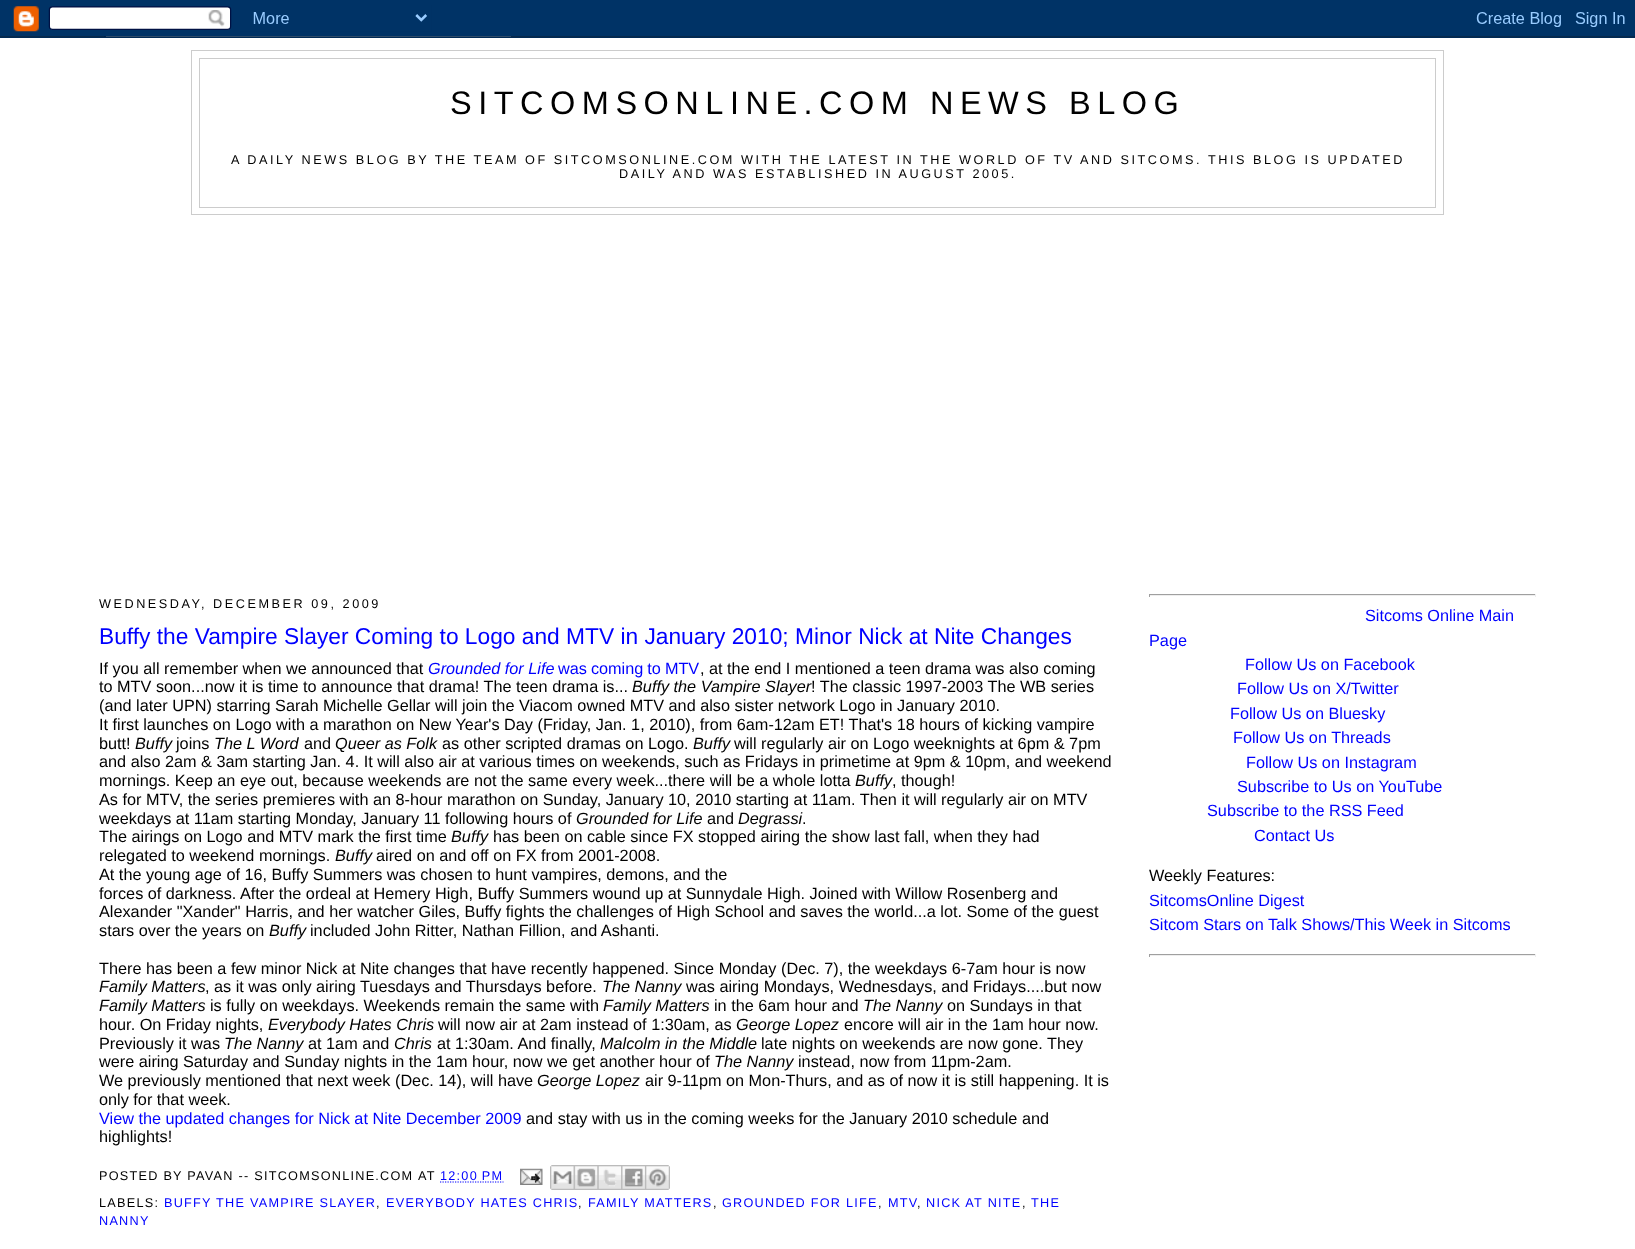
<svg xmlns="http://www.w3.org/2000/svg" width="1635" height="1249">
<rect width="100%" height="100%" fill="#fff"/>
<image x="0" y="0" width="1635" height="38" href="media/1.png"/>
<rect x="191.5" y="50.5" width="1252" height="164" fill="none" stroke="#ccc"/>
<rect x="199.5" y="58.5" width="1236" height="149" fill="none" stroke="#ccc"/>
<text x="450" y="114" style="font-family:Liberation Sans;font-size:32.5px;letter-spacing:6.5px;fill:#000">SITCOMSONLINE.COM NEWS BLOG</text>
<text x="231" y="164" style="font-family:Liberation Sans;font-size:12.68px;letter-spacing:2.54px;fill:#000">A DAILY NEWS BLOG BY THE TEAM OF SITCOMSONLINE.COM WITH THE LATEST IN THE WORLD OF TV AND SITCOMS. THIS BLOG IS UPDATED</text>
<text x="619" y="178" style="font-family:Liberation Sans;font-size:12.68px;letter-spacing:2.54px;fill:#000">DAILY AND WAS ESTABLISHED IN AUGUST 2005.</text>
<text x="99" y="608" style="font-family:Liberation Sans;font-size:12.68px;letter-spacing:2.54px;fill:#000">WEDNESDAY, DECEMBER 09, 2009</text>
<text x="99" y="644" style="font-family:Liberation Sans;font-size:22.75px;fill:#00f">Buffy the Vampire Slayer Coming to Logo and MTV in January 2010; Minor Nick at Nite Changes</text>
<text x="99" y="674" style="font-family:Liberation Sans;font-size:16.25px;fill:#000">If you all remember when we announced that</text>
<text x="428" y="674" style="font-family:Liberation Sans;font-size:16.25px;font-style:italic;fill:#00f">Grounded for Life</text>
<text x="558" y="674" word-spacing="-0.5" style="font-family:Liberation Sans;font-size:16.25px;fill:#00f">was coming to MTV</text>
<text x="700" y="674" style="font-family:Liberation Sans;font-size:16.25px;fill:#000">, at the end I mentioned a teen drama was also coming</text>
<text x="99" y="692" style="font-family:Liberation Sans;font-size:16.25px;fill:#000">to MTV soon...now it is time to announce that drama! The teen drama is...</text>
<text x="632" y="692" style="font-family:Liberation Sans;font-size:16.25px;font-style:italic;fill:#000">Buffy the Vampire Slayer</text>
<text x="811" y="692" style="font-family:Liberation Sans;font-size:16.25px;fill:#000">! The classic 1997-2003 The WB series</text>
<text x="99" y="711" style="font-family:Liberation Sans;font-size:16.25px;fill:#000">(and later UPN) starring Sarah Michelle Gellar will join the Viacom owned MTV and also sister network Logo in January 2010.</text>
<text x="99" y="730" style="font-family:Liberation Sans;font-size:16.25px;fill:#000">It first launches on Logo with a marathon on New Year's Day (Friday, Jan. 1, 2010), from 6am-12am ET! That's 18 hours of kicking vampire</text>
<text x="99" y="749" style="font-family:Liberation Sans;font-size:16.25px;fill:#000">butt!</text>
<text x="135" y="749" style="font-family:Liberation Sans;font-size:16.25px;font-style:italic;fill:#000">Buffy</text>
<text x="176" y="749" style="font-family:Liberation Sans;font-size:16.25px;fill:#000">joins</text>
<text x="214" y="749" style="font-family:Liberation Sans;font-size:16.25px;font-style:italic;fill:#000">The L Word</text>
<text x="304" y="749" style="font-family:Liberation Sans;font-size:16.25px;fill:#000">and</text>
<text x="335" y="749" style="font-family:Liberation Sans;font-size:16.25px;font-style:italic;fill:#000">Queer as Folk</text>
<text x="442" y="749" style="font-family:Liberation Sans;font-size:16.25px;fill:#000">as other scripted dramas on Logo.</text>
<text x="693" y="749" style="font-family:Liberation Sans;font-size:16.25px;font-style:italic;fill:#000">Buffy</text>
<text x="734" y="749" style="font-family:Liberation Sans;font-size:16.25px;fill:#000">will regularly air on Logo weeknights at 6pm &amp; 7pm</text>
<text x="99" y="767" style="font-family:Liberation Sans;font-size:16.25px;fill:#000">and also 2am &amp; 3am starting Jan. 4. It will also air at various times on weekends, such as Fridays in primetime at 9pm &amp; 10pm, and weekend</text>
<text x="99" y="786" style="font-family:Liberation Sans;font-size:16.25px;fill:#000">mornings. Keep an eye out, because weekends are not the same every week...there will be a whole lotta</text>
<text x="855" y="786" style="font-family:Liberation Sans;font-size:16.25px;font-style:italic;fill:#000">Buffy</text>
<text x="892" y="786" style="font-family:Liberation Sans;font-size:16.25px;fill:#000">, though!</text>
<text x="99" y="805" style="font-family:Liberation Sans;font-size:16.25px;fill:#000">As for MTV, the series premieres with an 8-hour marathon on Sunday, January 10, 2010 starting at 11am. Then it will regularly air on MTV</text>
<text x="99" y="824" style="font-family:Liberation Sans;font-size:16.25px;fill:#000">weekdays at 11am starting Monday, January 11 following hours of</text>
<text x="576" y="824" style="font-family:Liberation Sans;font-size:16.25px;font-style:italic;fill:#000">Grounded for Life</text>
<text x="707" y="824" style="font-family:Liberation Sans;font-size:16.25px;fill:#000">and</text>
<text x="738" y="824" style="font-family:Liberation Sans;font-size:16.25px;font-style:italic;fill:#000">Degrassi</text>
<text x="802" y="824" style="font-family:Liberation Sans;font-size:16.25px;fill:#000">.</text>
<text x="99" y="842" style="font-family:Liberation Sans;font-size:16.25px;fill:#000">The airings on Logo and MTV mark the first time</text>
<text x="451" y="842" style="font-family:Liberation Sans;font-size:16.25px;font-style:italic;fill:#000">Buffy</text>
<text x="493" y="842" style="font-family:Liberation Sans;font-size:16.25px;fill:#000">has been on cable since FX stopped airing the show last fall, when they had</text>
<text x="99" y="861" style="font-family:Liberation Sans;font-size:16.25px;fill:#000">relegated to weekend mornings.</text>
<text x="335" y="861" style="font-family:Liberation Sans;font-size:16.25px;font-style:italic;fill:#000">Buffy</text>
<text x="376" y="861" style="font-family:Liberation Sans;font-size:16.25px;fill:#000">aired on and off on FX from 2001-2008.</text>
<text x="99" y="880" style="font-family:Liberation Sans;font-size:16.25px;fill:#000">At the young age of 16, Buffy Summers was chosen to hunt vampires, demons, and the</text>
<text x="99" y="899" style="font-family:Liberation Sans;font-size:16.25px;fill:#000">forces of darkness. After the ordeal at Hemery High, Buffy Summers wound up at Sunnydale High. Joined with Willow Rosenberg and</text>
<text x="99" y="917" style="font-family:Liberation Sans;font-size:16.25px;fill:#000">Alexander "Xander" Harris, and her watcher Giles, Buffy fights the challenges of High School and saves the world...a lot. Some of the guest</text>
<text x="99" y="936" style="font-family:Liberation Sans;font-size:16.25px;fill:#000">stars over the years on</text>
<text x="269" y="936" style="font-family:Liberation Sans;font-size:16.25px;font-style:italic;fill:#000">Buffy</text>
<text x="310" y="936" style="font-family:Liberation Sans;font-size:16.25px;fill:#000">included John Ritter, Nathan Fillion, and Ashanti.</text>
<text x="99" y="974" style="font-family:Liberation Sans;font-size:16.25px;fill:#000">There has been a few minor Nick at Nite changes that have recently happened. Since Monday (Dec. 7), the weekdays 6-7am hour is now</text>
<text x="99" y="992" style="font-family:Liberation Sans;font-size:16.25px;font-style:italic;fill:#000">Family Matters</text>
<text x="205" y="992" style="font-family:Liberation Sans;font-size:16.25px;fill:#000">, as it was only airing Tuesdays and Thursdays before.</text>
<text x="602" y="992" style="font-family:Liberation Sans;font-size:16.25px;font-style:italic;fill:#000">The Nanny</text>
<text x="686" y="992" style="font-family:Liberation Sans;font-size:16.25px;fill:#000">was airing Mondays, Wednesdays, and Fridays....but now</text>
<text x="99" y="1011" style="font-family:Liberation Sans;font-size:16.25px;font-style:italic;fill:#000">Family Matters</text>
<text x="210" y="1011" style="font-family:Liberation Sans;font-size:16.25px;fill:#000">is fully on weekdays. Weekends remain the same with</text>
<text x="603" y="1011" style="font-family:Liberation Sans;font-size:16.25px;font-style:italic;fill:#000">Family Matters</text>
<text x="714" y="1011" style="font-family:Liberation Sans;font-size:16.25px;fill:#000">in the 6am hour and</text>
<text x="863" y="1011" style="font-family:Liberation Sans;font-size:16.25px;font-style:italic;fill:#000">The Nanny</text>
<text x="947" y="1011" style="font-family:Liberation Sans;font-size:16.25px;fill:#000">on Sundays in that</text>
<text x="99" y="1030" style="font-family:Liberation Sans;font-size:16.25px;fill:#000">hour. On Friday nights,</text>
<text x="268" y="1030" style="font-family:Liberation Sans;font-size:16.25px;font-style:italic;fill:#000">Everybody Hates Chris</text>
<text x="438" y="1030" style="font-family:Liberation Sans;font-size:16.25px;fill:#000">will now air at 2am instead of 1:30am, as</text>
<text x="736" y="1030" style="font-family:Liberation Sans;font-size:16.25px;font-style:italic;fill:#000">George Lopez</text>
<text x="844" y="1030" style="font-family:Liberation Sans;font-size:16.25px;fill:#000">encore will air in the 1am hour now.</text>
<text x="99" y="1049" style="font-family:Liberation Sans;font-size:16.25px;fill:#000">Previously it was</text>
<text x="224" y="1049" style="font-family:Liberation Sans;font-size:16.25px;font-style:italic;fill:#000">The Nanny</text>
<text x="308" y="1049" style="font-family:Liberation Sans;font-size:16.25px;fill:#000">at 1am and</text>
<text x="394" y="1049" style="font-family:Liberation Sans;font-size:16.25px;font-style:italic;fill:#000">Chris</text>
<text x="437" y="1049" style="font-family:Liberation Sans;font-size:16.25px;fill:#000">at 1:30am. And finally,</text>
<text x="600" y="1049" style="font-family:Liberation Sans;font-size:16.25px;font-style:italic;fill:#000">Malcolm in the Middle</text>
<text x="761" y="1049" style="font-family:Liberation Sans;font-size:16.25px;fill:#000">late nights on weekends are now gone. They</text>
<text x="99" y="1067" style="font-family:Liberation Sans;font-size:16.25px;fill:#000">were airing Saturday and Sunday nights in the 1am hour, now we get another hour of</text>
<text x="714" y="1067" style="font-family:Liberation Sans;font-size:16.25px;font-style:italic;fill:#000">The Nanny</text>
<text x="798" y="1067" style="font-family:Liberation Sans;font-size:16.25px;fill:#000">instead, now from 11pm-2am.</text>
<text x="99" y="1086" style="font-family:Liberation Sans;font-size:16.25px;fill:#000">We previously mentioned that next week (Dec. 14), will have</text>
<text x="537" y="1086" style="font-family:Liberation Sans;font-size:16.25px;font-style:italic;fill:#000">George Lopez</text>
<text x="645" y="1086" style="font-family:Liberation Sans;font-size:16.25px;fill:#000">air 9-11pm on Mon-Thurs, and as of now it is still happening. It is</text>
<text x="99" y="1105" style="font-family:Liberation Sans;font-size:16.25px;fill:#000">only for that week.</text>
<text x="99" y="1124" style="font-family:Liberation Sans;font-size:16.25px;fill:#00f">View the updated changes for Nick at Nite December 2009</text>
<text x="526" y="1124" style="font-family:Liberation Sans;font-size:16.25px;fill:#000">and stay with us in the coming weeks for the January 2010 schedule and</text>
<text x="99" y="1142" style="font-family:Liberation Sans;font-size:16.25px;fill:#000">highlights!</text>
<text x="99" y="1180" style="font-family:Liberation Sans;font-size:12.68px;letter-spacing:1.25px;fill:#000">POSTED BY PAVAN -- SITCOMSONLINE.COM</text>
<text x="418" y="1180" style="font-family:Liberation Sans;font-size:12.68px;letter-spacing:1.25px;fill:#000">AT</text>
<text x="440" y="1180" style="font-family:Liberation Sans;font-size:12.68px;letter-spacing:1.25px;fill:#00f">12:00 PM</text>
<path d="M440 1182h63.5" fill="none" stroke="#00f" stroke-width="1.2" stroke-dasharray="1.25 1.25"/>
<image x="520" y="1168" width="23" height="17" href="media/2.png"/>
<image x="550" y="1165" width="24" height="25" href="media/3.png"/>
<image x="573" y="1165" width="25" height="25" href="media/4.png"/>
<image x="597" y="1165" width="25" height="25" href="media/5.png"/>
<image x="621" y="1165" width="24" height="25" href="media/6.png"/>
<image x="645" y="1165" width="25" height="25" href="media/7.png"/>
<text x="99" y="1207" style="font-family:Liberation Sans;font-size:12.68px;letter-spacing:1.25px;fill:#000">LABELS:</text>
<text x="164" y="1207" style="font-family:Liberation Sans;font-size:12.68px;letter-spacing:1.25px;fill:#00f">BUFFY THE VAMPIRE SLAYER</text>
<text x="376" y="1207" style="font-family:Liberation Sans;font-size:12.68px;letter-spacing:1.25px;fill:#000">,</text>
<text x="386" y="1207" style="font-family:Liberation Sans;font-size:12.68px;letter-spacing:1.25px;fill:#00f">EVERYBODY HATES CHRIS</text>
<text x="578" y="1207" style="font-family:Liberation Sans;font-size:12.68px;letter-spacing:1.25px;fill:#000">,</text>
<text x="588" y="1207" style="font-family:Liberation Sans;font-size:12.68px;letter-spacing:1.25px;fill:#00f">FAMILY MATTERS</text>
<text x="713" y="1207" style="font-family:Liberation Sans;font-size:12.68px;letter-spacing:1.25px;fill:#000">,</text>
<text x="722" y="1207" style="font-family:Liberation Sans;font-size:12.68px;letter-spacing:1.25px;fill:#00f">GROUNDED FOR LIFE</text>
<text x="878" y="1207" style="font-family:Liberation Sans;font-size:12.68px;letter-spacing:1.25px;fill:#000">,</text>
<text x="888" y="1207" style="font-family:Liberation Sans;font-size:12.68px;letter-spacing:1.25px;fill:#00f">MTV</text>
<text x="917" y="1207" style="font-family:Liberation Sans;font-size:12.68px;letter-spacing:1.25px;fill:#000">,</text>
<text x="926" y="1207" style="font-family:Liberation Sans;font-size:12.68px;letter-spacing:1.25px;fill:#00f">NICK AT NITE</text>
<text x="1022" y="1207" style="font-family:Liberation Sans;font-size:12.68px;letter-spacing:1.25px;fill:#000">,</text>
<text x="1031" y="1207" style="font-family:Liberation Sans;font-size:12.68px;letter-spacing:1.25px;fill:#00f">THE</text>
<text x="99" y="1225" style="font-family:Liberation Sans;font-size:12.68px;letter-spacing:1.25px;fill:#00f">NANNY</text>
<rect x="1149" y="594" width="387" height="1" fill="#9f9f9f"/>
<rect x="1535" y="594" width="1" height="3" fill="#eee"/>
<rect x="1149" y="595" width="387" height="1" fill="#eee"/>
<rect x="1149" y="594" width="1" height="3" fill="#9f9f9f"/>
<text x="1365" y="621" style="font-family:Liberation Sans;font-size:16.25px;fill:#00f">Sitcoms Online Main</text>
<text x="1149" y="646" style="font-family:Liberation Sans;font-size:16.25px;fill:#00f">Page</text>
<text x="1245" y="670" style="font-family:Liberation Sans;font-size:16.25px;fill:#00f">Follow Us on Facebook</text>
<text x="1237" y="694" style="font-family:Liberation Sans;font-size:16.25px;fill:#00f">Follow Us on X/Twitter</text>
<text x="1230" y="719" style="font-family:Liberation Sans;font-size:16.25px;fill:#00f">Follow Us on Bluesky</text>
<text x="1233" y="743" style="font-family:Liberation Sans;font-size:16.25px;fill:#00f">Follow Us on Threads</text>
<text x="1246" y="768" style="font-family:Liberation Sans;font-size:16.25px;fill:#00f">Follow Us on Instagram</text>
<text x="1237" y="792" style="font-family:Liberation Sans;font-size:16.25px;fill:#00f">Subscribe to Us on YouTube</text>
<text x="1207" y="816" style="font-family:Liberation Sans;font-size:16.25px;fill:#00f">Subscribe to the RSS Feed</text>
<text x="1254" y="841" style="font-family:Liberation Sans;font-size:16.25px;fill:#00f">Contact Us</text>
<text x="1149" y="881" style="font-family:Liberation Sans;font-size:16.25px;fill:#000">Weekly Features:</text>
<text x="1149" y="906" style="font-family:Liberation Sans;font-size:16.25px;fill:#00f">SitcomsOnline Digest</text>
<text x="1149" y="930" style="font-family:Liberation Sans;font-size:16.25px;fill:#00f">Sitcom Stars on Talk Shows/This Week in Sitcoms</text>
<rect x="1149" y="954" width="387" height="1" fill="#9f9f9f"/>
<rect x="1535" y="954" width="1" height="3" fill="#eee"/>
<rect x="1149" y="955" width="387" height="1" fill="#eee"/>
<rect x="1149" y="954" width="1" height="3" fill="#9f9f9f"/>
</svg>
